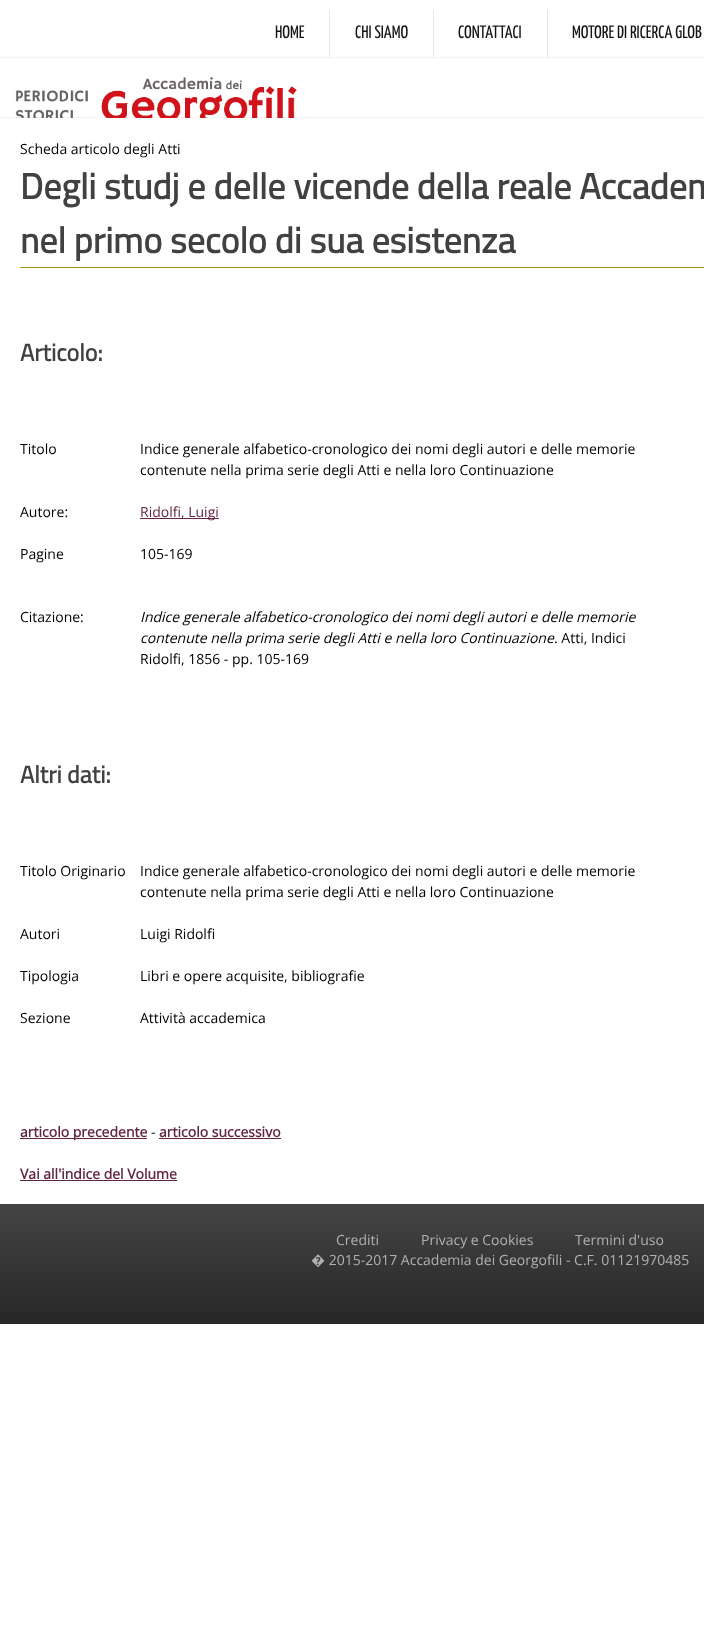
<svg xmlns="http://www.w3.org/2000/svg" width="704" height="1642">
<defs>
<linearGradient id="g1" gradientUnits="userSpaceOnUse" x1="500" y1="1204" x2="500" y2="1324"><stop offset="0" stop-color="#444"/><stop offset="1" stop-color="#272727"/></linearGradient>
</defs>
<rect width="100%" height="100%" fill="#fff"/>
<rect y="57" width="704" height="1" fill="#f2f2f2"/>
<rect x="329" y="10" width="1" height="47" fill="#e6e6e6"/>
<text x="275" y="38" style="font-family:Yanone Kaffeesatz;font-size:18px;fill:#151515">HOME</text>
<rect x="433" y="10" width="1" height="47" fill="#e6e6e6"/>
<text x="355" y="38" style="font-family:Yanone Kaffeesatz;font-size:18px;fill:#151515">CHI SIAMO</text>
<rect x="547" y="10" width="1" height="47" fill="#e6e6e6"/>
<text x="458" y="38" style="font-family:Yanone Kaffeesatz;font-size:18px;fill:#151515">CONTATTACI</text>
<text x="572" y="38" style="font-family:Yanone Kaffeesatz;font-size:18px;fill:#151515">MOTORE DI RICERCA GLOB</text>
<rect y="117" width="704" height="1" fill="#f2f2f2"/>
<image x="15" y="76" width="282" height="42" href="media/1.png"/>
<text x="20" y="154" style="font-family:Open Sans;font-size:14px;fill:#000">Scheda articolo degli Atti</text>
<rect x="20" y="267" width="684" height="1" fill="#ae9312"/>
<text x="20" y="199" style="font-family:Titillium Web;font-size:36px;font-weight:bold;fill:#414141">Degli studj e delle vicende della reale Accadem</text>
<text x="20" y="253" style="font-family:Titillium Web;font-size:36px;font-weight:bold;fill:#414141">nel primo secolo di sua esistenza</text>
<text x="20" y="361" style="font-family:Titillium Web;font-size:24px;font-weight:bold;fill:#414141">Articolo:</text>
<text x="20" y="454" style="font-family:Open Sans;font-size:14px;fill:#000">Titolo</text>
<text x="140" y="454" style="font-family:Open Sans;font-size:14px;fill:#000">Indice generale alfabetico-cronologico dei nomi degli autori e delle memorie</text>
<text x="140" y="475" style="font-family:Open Sans;font-size:14px;fill:#000">contenute nella prima serie degli Atti e nella loro Continuazione</text>
<text x="20" y="517" style="font-family:Open Sans;font-size:14px;fill:#000">Autore:</text>
<rect x="140" y="518" width="79" height="1" fill="#632642"/>
<text x="140" y="517" style="font-family:Open Sans;font-size:14px;fill:#632642">Ridolfi, Luigi</text>
<text x="20" y="559" style="font-family:Open Sans;font-size:14px;fill:#000">Pagine</text>
<text x="140" y="559" style="font-family:Open Sans;font-size:14px;fill:#000">105-169</text>
<text x="20" y="622" style="font-family:Open Sans;font-size:14px;fill:#000">Citazione:</text>
<text x="140" y="622" style="font-family:Open Sans;font-size:14px;font-style:italic;fill:#000">Indice generale alfabetico-cronologico dei nomi degli autori e delle memorie</text>
<text x="140" y="643" style="font-family:Open Sans;font-size:14px;font-style:italic;fill:#000">contenute nella prima serie degli Atti e nella loro Continuazione</text>
<text x="554" y="643" style="font-family:Open Sans;font-size:14px;fill:#000">. Atti, Indici</text>
<text x="140" y="664" style="font-family:Open Sans;font-size:14px;fill:#000">Ridolfi, 1856 - pp. 105-169</text>
<text x="20" y="783" style="font-family:Titillium Web;font-size:24px;font-weight:bold;fill:#414141">Altri dati:</text>
<text x="20" y="876" style="font-family:Open Sans;font-size:14px;fill:#000">Titolo Originario</text>
<text x="140" y="876" style="font-family:Open Sans;font-size:14px;fill:#000">Indice generale alfabetico-cronologico dei nomi degli autori e delle memorie</text>
<text x="140" y="897" style="font-family:Open Sans;font-size:14px;fill:#000">contenute nella prima serie degli Atti e nella loro Continuazione</text>
<text x="20" y="939" style="font-family:Open Sans;font-size:14px;fill:#000">Autori</text>
<text x="140" y="939" style="font-family:Open Sans;font-size:14px;fill:#000">Luigi Ridolfi</text>
<text x="20" y="981" style="font-family:Open Sans;font-size:14px;fill:#000">Tipologia</text>
<text x="140" y="981" style="font-family:Open Sans;font-size:14px;fill:#000">Libri e opere acquisite, bibliografie</text>
<text x="20" y="1023" style="font-family:Open Sans;font-size:14px;fill:#000">Sezione</text>
<text x="140" y="1023" style="font-family:Open Sans;font-size:14px;fill:#000">Attività accademica</text>
<rect x="20" y="1138" width="127" height="1" fill="#632642"/>
<text x="20" y="1137" style="font-family:Open Sans;font-size:14px;font-weight:bold;fill:#632642">articolo precedente</text>
<text x="151" y="1137" style="font-family:Open Sans;font-size:14px;fill:#000">-</text>
<text x="159" y="1137" style="font-family:Open Sans;font-size:14px;font-weight:bold;fill:#632642">articolo successivo</text>
<rect x="159" y="1138" width="122" height="1" fill="#632642"/>
<text x="20" y="1179" style="font-family:Open Sans;font-size:14px;font-weight:bold;fill:#632642">Vai all'indice del Volume</text>
<rect x="20" y="1180" width="157" height="1" fill="#632642"/>
<rect y="1204" width="704" height="120" fill="url(#g1)"/>
<text x="336" y="1245" style="font-family:Open Sans;font-size:14px;fill:#b1b1b1">Crediti</text>
<text x="421" y="1245" style="font-family:Open Sans;font-size:14px;fill:#b1b1b1">Privacy e Cookies</text>
<text x="575" y="1245" style="font-family:Open Sans;font-size:14px;fill:#b1b1b1">Termini d'uso</text>
<text x="311" y="1265" style="font-family:Open Sans;font-size:14px;fill:#b1b1b1">� 2015-2017 Accademia dei Georgofili - C.F. 01121970485</text>
</svg>
